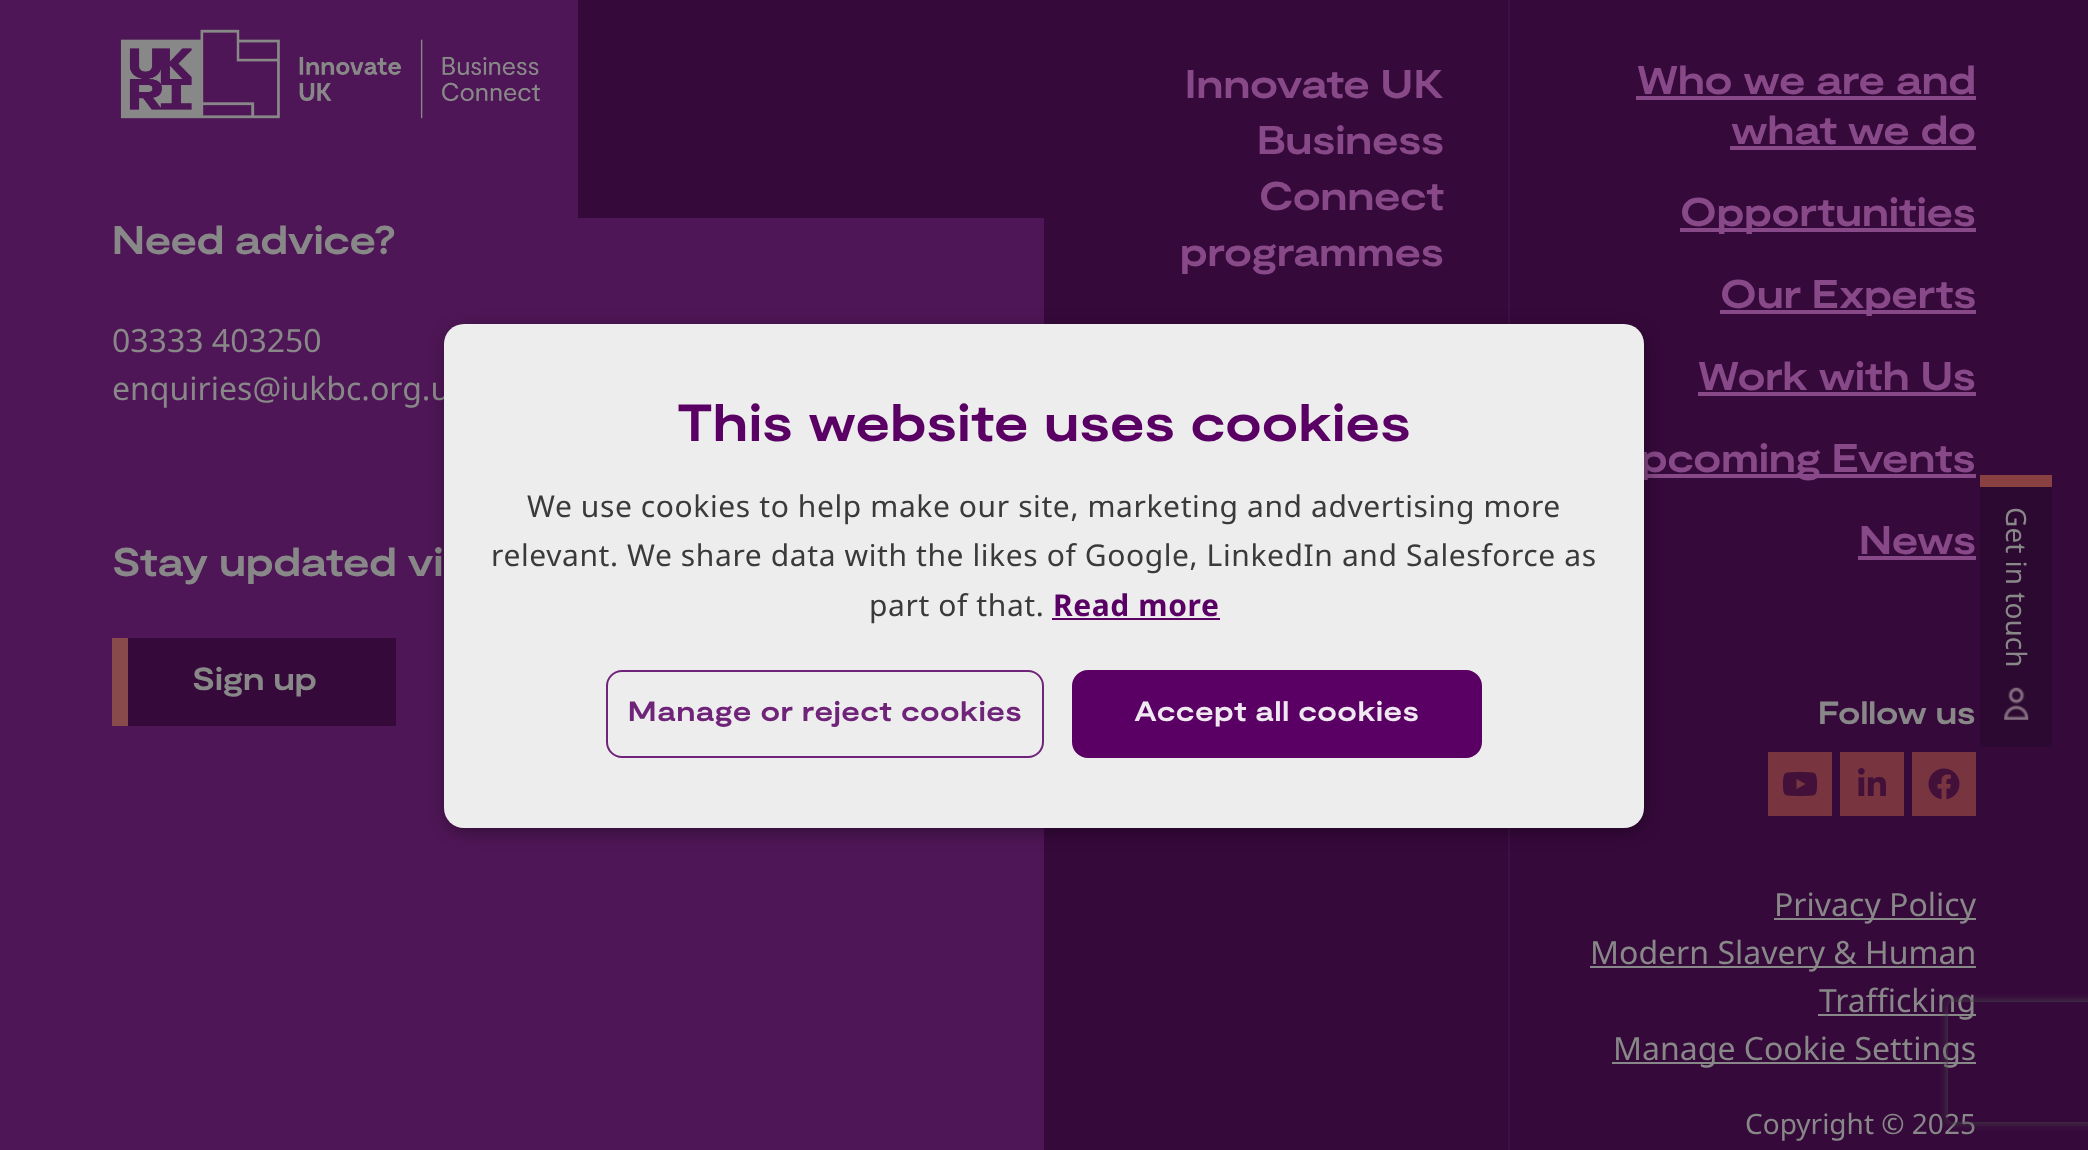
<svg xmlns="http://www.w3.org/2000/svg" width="2088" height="1150">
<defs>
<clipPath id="clip1"><path d="M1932 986h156v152h-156zm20 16h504c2 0 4 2 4 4v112c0 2-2 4-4 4h-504c-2 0-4-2-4-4v-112c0-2 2-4 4-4z" clip-rule="evenodd"/></clipPath>
</defs>
<rect width="100%" height="100%" fill="#4e1656"/>
<rect x="1044" width="1044" height="1150" fill="#36093b"/>
<image x="120" y="29" width="420" height="90" href="media/1.png"/>
<rect x="578" width="466" height="218" fill="#36093b"/>
<text x="112" y="254" style="font-family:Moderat;font-size:40px;font-weight:bold;fill:#888">Need advice?</text>
<text x="112" y="352" style="font-family:Noto Sans;font-size:32px;fill:#888">03333 403250</text>
<text x="112" y="400" style="font-family:Noto Sans;font-size:32px;fill:#888">enquiries@iukbc.org.u</text>
<text x="112" y="576" style="font-family:Moderat;font-size:40px;font-weight:bold;fill:#888">Stay updated vi</text>
<rect x="128" y="638" width="268" height="88" fill="#36093b"/>
<rect x="112" y="638" width="16" height="88" fill="#884a4a"/>
<text x="192" y="690" style="font-family:Moderat;font-size:32px;font-weight:bold;fill:#888">Sign up</text>
<rect x="1508" width="2" height="1150" fill="#3e0f43"/>
<text x="1185" y="98" style="font-family:Moderat;font-size:40px;font-weight:bold;fill:#884988">Innovate UK</text>
<text x="1257" y="154" style="font-family:Moderat;font-size:40px;font-weight:bold;fill:#884988">Business</text>
<text x="1259" y="210" style="font-family:Moderat;font-size:40px;font-weight:bold;fill:#884988">Connect</text>
<text x="1180" y="266" style="font-family:Moderat;font-size:40px;font-weight:bold;fill:#884988">programmes</text>
<text x="1637" y="94" style="font-family:Moderat;font-size:40px;font-weight:bold;fill:#884988">Who we are and</text>
<rect x="1636" y="96" width="340" height="4" fill="#884988"/>
<text x="1731" y="144" style="font-family:Moderat;font-size:40px;font-weight:bold;fill:#884988">what we do</text>
<rect x="1730" y="146" width="246" height="4" fill="#884988"/>
<rect x="1680" y="228" width="296" height="4" fill="#884988"/>
<text x="1680" y="226" style="font-family:Moderat;font-size:40px;font-weight:bold;fill:#884988">Opportunities</text>
<rect x="1720" y="310" width="256" height="4" fill="#884988"/>
<text x="1720" y="308" style="font-family:Moderat;font-size:40px;font-weight:bold;fill:#884988">Our Experts</text>
<text x="1698" y="390" style="font-family:Moderat;font-size:40px;font-weight:bold;fill:#884988">Work with Us</text>
<rect x="1698" y="392" width="278" height="4" fill="#884988"/>
<rect x="1644" y="474" width="332" height="4" fill="#884988"/>
<text x="1640" y="472" style="font-family:Moderat;font-size:40px;font-weight:bold;fill:#884988">pcoming Events</text>
<text x="1859" y="554" style="font-family:Moderat;font-size:40px;font-weight:bold;fill:#884988">News</text>
<rect x="1858" y="556" width="118" height="4" fill="#884988"/>
<text x="1818" y="724" style="font-family:Moderat;font-size:32px;font-weight:bold;fill:#888">Follow us</text>
<rect x="1768" y="752" width="64" height="64" fill="#78353f"/>
<image x="1782" y="772" width="36" height="24" href="media/2.png"/>
<rect x="1840" y="752" width="64" height="64" fill="#78353f"/>
<image x="1858" y="768" width="28" height="28" href="media/3.png"/>
<rect x="1912" y="752" width="64" height="64" fill="#78353f"/>
<image x="1928" y="768" width="32" height="32" href="media/4.png"/>
<rect x="1774" y="918" width="202" height="2" fill="#888"/>
<text x="1774" y="916" style="font-family:Noto Sans;font-size:32px;fill:#888">Privacy Policy</text>
<rect x="1590" y="966" width="386" height="2" fill="#888"/>
<text x="1590" y="964" style="font-family:Noto Sans;font-size:32px;fill:#888">Modern Slavery &amp; Human</text>
<rect x="1818" y="1014" width="158" height="2" fill="#888"/>
<text x="1819" y="1012" style="font-family:Noto Sans;font-size:32px;fill:#888">Trafficking</text>
<rect x="1612" y="1062" width="364" height="2" fill="#888"/>
<text x="1613" y="1060" style="font-family:Noto Sans;font-size:32px;fill:#888">Manage Cookie Settings</text>
<text x="1745" y="1134" style="font-family:Noto Sans;font-size:28px;fill:#888">Copyright © 2025</text>
<rect x="446" y="328" width="1200" height="504" rx="20" fill="#00000059" filter="blur(8px)"/>
<rect x="444" y="324" width="1200" height="504" rx="20" fill="#ededed"/>
<text x="677" y="441" style="font-family:Moderat;font-size:52px;font-weight:bold;letter-spacing:0.8px;fill:#5a0064">This website uses cookies</text>
<text x="527" y="517" style="font-family:Noto Sans;font-size:30px;letter-spacing:0.6px;fill:#3a3a3a">We use cookies to help make our site, marketing and advertising more</text>
<text x="491" y="566" style="font-family:Noto Sans;font-size:30px;letter-spacing:0.6px;fill:#3a3a3a">relevant. We share data with the likes of Google, LinkedIn and Salesforce as</text>
<text x="869" y="616" style="font-family:Noto Sans;font-size:30px;letter-spacing:0.6px;fill:#3a3a3a">part of that.</text>
<text x="1053" y="616" style="font-family:Noto Sans;font-size:30px;font-weight:bold;letter-spacing:0.6px;fill:#5a0064">Read more</text>
<rect x="1052" y="618" width="168" height="2" fill="#5a0064"/>
<rect x="607" y="671" width="436" height="86" rx="15" fill="none" stroke="#702479" stroke-width="2"/>
<text x="628" y="721" style="font-family:Moderat;font-size:28px;font-weight:bold;letter-spacing:0.8px;fill:#702479">Manage or reject cookies</text>
<rect x="1073" y="671" width="408" height="86" rx="15" fill="#5a0064" stroke="#5a0064" stroke-width="2"/>
<text x="1134" y="721" style="font-family:Moderat;font-size:28px;font-weight:bold;letter-spacing:0.8px;fill:#f0e8f1">Accept all cookies</text>
<rect x="1980" y="487" width="72" height="260" fill="#2c0930"/>
<rect x="1980" y="475" width="72" height="12" fill="#884040"/>
<text x="2006" y="507" transform="rotate(90 2006 507)" style="font-family:Noto Sans;font-size:28px;fill:#888">Get in touch</text>
<image x="2004" y="687" width="25" height="33" href="media/5.png"/>
<g clip-path="url(#clip1)">
<rect x="1948" y="1002" width="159" height="120" rx="4" fill="#494949" filter="blur(5px)"/>
</g>
</svg>
